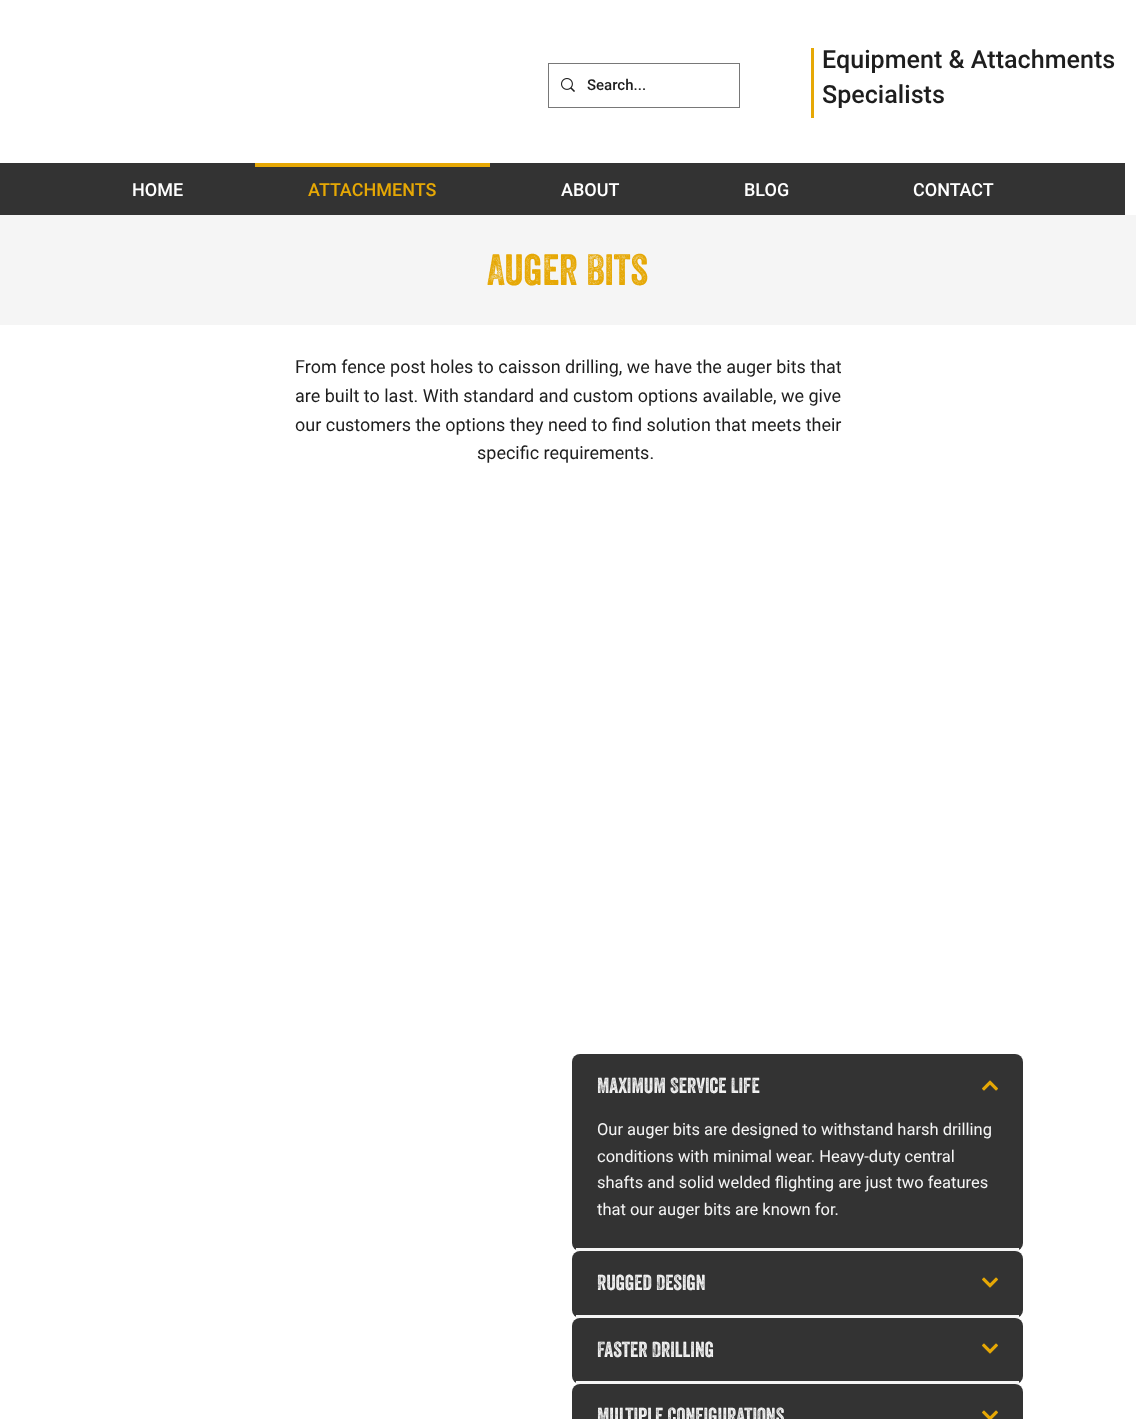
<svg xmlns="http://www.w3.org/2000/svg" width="1136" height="1419">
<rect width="100%" height="100%" fill="#f5f5f5"/>
<rect width="1136" height="215" fill="#fff"/>
<rect x="548.5" y="63.5" width="191" height="44" fill="none" stroke="#787878"/>
<image x="561" y="78" width="14" height="14" href="media/1.png"/>
<text x="587" y="90" style="font-family:Roboto;font-size:15px;font-weight:500;fill:#1e1e1e">Search...</text>
<rect x="811" y="48" width="3" height="70" fill="#e6a805"/>
<text x="822" y="68" style="font-family:Roboto;font-size:25.1px;font-weight:500;fill:#1e1e1e">Equipment &amp; Attachments</text>
<text x="822" y="103" style="font-family:Roboto;font-size:25.1px;font-weight:500;fill:#1e1e1e">Specialists</text>
<rect y="163" width="1125" height="52" fill="#333"/>
<text x="132" y="196" style="font-family:Roboto;font-size:18px;font-weight:500;fill:#fff">HOME</text>
<rect x="255" y="163" width="235" height="4" fill="#e6a805"/>
<text x="308" y="196" style="font-family:Roboto;font-size:18px;font-weight:500;fill:#e6a805">ATTACHMENTS</text>
<text x="561" y="196" style="font-family:Roboto;font-size:18px;font-weight:500;fill:#fff">ABOUT</text>
<text x="744" y="196" style="font-family:Roboto;font-size:18px;font-weight:500;fill:#fff">BLOG</text>
<text x="913" y="196" style="font-family:Roboto;font-size:18px;font-weight:500;fill:#fff">CONTACT</text>
<text x="487" y="285" style="font-family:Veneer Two;font-size:42.5px;fill:#e6a805">Auger Bits</text>
<rect y="325" width="1136" height="1094" fill="#fff"/>
<text x="295" y="373" style="font-family:Roboto;font-size:18px;fill:#1e1e1e">From fence post holes to caisson drilling, we have the auger bits that</text>
<text x="295" y="402" style="font-family:Roboto;font-size:18px;fill:#1e1e1e">are built to last. With standard and custom options available, we give</text>
<text x="295" y="431" style="font-family:Roboto;font-size:18px;fill:#1e1e1e">our customers the options they need to find solution that meets their</text>
<text x="477" y="459" style="font-family:Roboto;font-size:18px;fill:#1e1e1e">specific requirements.</text>
<rect x="572" y="1054" width="451" height="197" rx="8" fill="#333"/>
<rect x="576" y="1248" width="443" height="3" fill="#f5f5f5"/>
<text x="597" y="1093" style="font-family:Veneer Two;font-size:21px;fill:#f5f5f5">Maximum Service Life</text>
<image x="982" y="1080" width="16" height="11" href="media/2.png"/>
<text x="597" y="1135" style="font-family:Roboto;font-size:16.5px;fill:#f5f5f5">Our auger bits are designed to withstand harsh drilling</text>
<text x="597" y="1162" style="font-family:Roboto;font-size:16.5px;fill:#f5f5f5">conditions with minimal wear. Heavy-duty central</text>
<text x="597" y="1188" style="font-family:Roboto;font-size:16.5px;fill:#f5f5f5">shafts and solid welded flighting are just two features</text>
<text x="597" y="1215" style="font-family:Roboto;font-size:16.5px;fill:#f5f5f5">that our auger bits are known for.</text>
<rect x="572" y="1251" width="451" height="67" rx="8" fill="#333"/>
<rect x="576" y="1315" width="443" height="3" fill="#f5f5f5"/>
<text x="597" y="1290" style="font-family:Veneer Two;font-size:21px;fill:#f5f5f5">Rugged Design</text>
<image x="982" y="1277" width="16" height="11" href="media/3.png"/>
<rect x="572" y="1318" width="451" height="66" rx="8" fill="#333"/>
<rect x="576" y="1381" width="443" height="3" fill="#f5f5f5"/>
<text x="597" y="1357" style="font-family:Veneer Two;font-size:21px;fill:#f5f5f5">Faster Drilling</text>
<image x="982" y="1343" width="16" height="11" href="media/3.png"/>
<rect x="572" y="1384" width="451" height="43" rx="8" fill="#333"/>
<text x="597" y="1423" style="font-family:Veneer Two;font-size:21px;fill:#f5f5f5">Multiple Configurations</text>
<image x="982" y="1410" width="16" height="9" href="media/4.png"/>
</svg>
